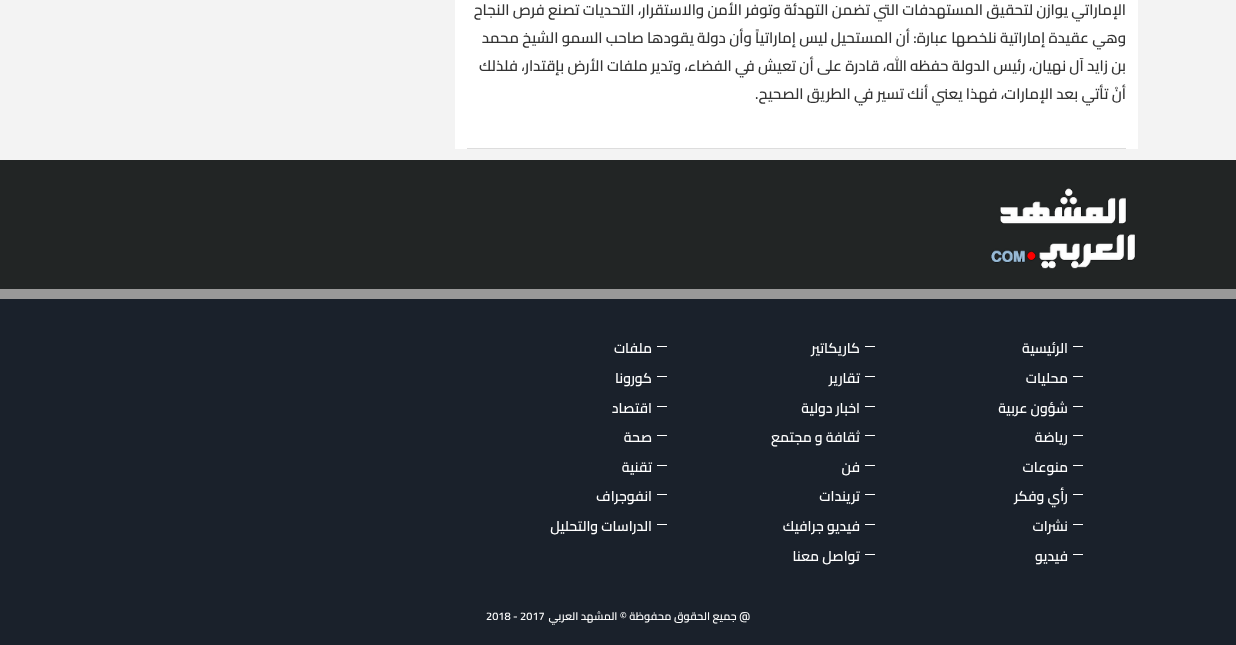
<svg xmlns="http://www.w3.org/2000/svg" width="1236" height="645">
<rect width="100%" height="100%" fill="#f3f3f3"/>
<rect x="455" width="683" height="149" fill="#fff"/>
<text x="1126" y="15" style="font-family:Cairo;font-size:15px;font-weight:600;direction:rtl;fill:#333">الإماراتي يوازن لتحقيق المستهدفات التي تضمن التهدئة وتوفر الأمن والاستقرار، التحديات تصنع فرص النجاح</text>
<text x="1126" y="43" style="font-family:Cairo;font-size:15px;font-weight:600;direction:rtl;fill:#333">وهي عقيدة إماراتية نلخصها عبارة: أن المستحيل ليس إماراتياً وأن دولة يقودها صاحب السمو الشيخ محمد</text>
<text x="1126" y="71" style="font-family:Cairo;font-size:15px;font-weight:600;direction:rtl;fill:#333">بن زايد آل نهيان، رئيس الدولة حفظه الله، قادرة على أن تعيش في الفضاء، وتدير ملفات الأرض بإقتدار، فلذلك</text>
<text x="1126" y="99" style="font-family:Cairo;font-size:15px;font-weight:600;direction:rtl;fill:#333">أنْ تأتي بعد الإمارات، فهذا يعني أنك تسير في الطريق الصحيح.</text>
<rect x="467" y="148" width="659" height="1" fill="#ddd"/>
<rect y="160" width="1236" height="129" fill="#222525"/>
<image x="991" y="188" width="145" height="81" href="media/1.png"/>
<rect y="299" width="1236" height="346" fill="#1a212b"/>
<rect y="289" width="1236" height="10" fill="#999"/>
<rect x="1073" y="346" width="10" height="1" fill="#fff"/>
<text x="1068" y="353" style="font-family:Cairo;font-size:14px;font-weight:600;direction:rtl;fill:#fff">الرئيسية</text>
<rect x="865" y="346" width="10" height="1" fill="#fff"/>
<text x="860" y="353" style="font-family:Cairo;font-size:14px;font-weight:600;direction:rtl;fill:#fff">كاريكاتير</text>
<rect x="657" y="346" width="10" height="1" fill="#fff"/>
<text x="652" y="353" style="font-family:Cairo;font-size:14px;font-weight:600;direction:rtl;fill:#fff">ملفات</text>
<rect x="1073" y="376" width="10" height="1" fill="#fff"/>
<text x="1068" y="383" style="font-family:Cairo;font-size:14px;font-weight:600;direction:rtl;fill:#fff">محليات</text>
<rect x="865" y="376" width="10" height="1" fill="#fff"/>
<text x="860" y="383" style="font-family:Cairo;font-size:14px;font-weight:600;direction:rtl;fill:#fff">تقارير</text>
<rect x="657" y="376" width="10" height="1" fill="#fff"/>
<text x="652" y="383" style="font-family:Cairo;font-size:14px;font-weight:600;direction:rtl;fill:#fff">كورونا</text>
<rect x="1073" y="406" width="10" height="1" fill="#fff"/>
<text x="1068" y="413" style="font-family:Cairo;font-size:14px;font-weight:600;direction:rtl;fill:#fff">شؤون عربية</text>
<rect x="865" y="406" width="10" height="1" fill="#fff"/>
<text x="860" y="413" style="font-family:Cairo;font-size:14px;font-weight:600;direction:rtl;fill:#fff">اخبار دولية</text>
<rect x="657" y="406" width="10" height="1" fill="#fff"/>
<text x="652" y="413" style="font-family:Cairo;font-size:14px;font-weight:600;direction:rtl;fill:#fff">اقتصاد</text>
<rect x="1073" y="435" width="10" height="1" fill="#fff"/>
<text x="1068" y="442" style="font-family:Cairo;font-size:14px;font-weight:600;direction:rtl;fill:#fff">رياضة</text>
<rect x="865" y="435" width="10" height="1" fill="#fff"/>
<text x="860" y="442" style="font-family:Cairo;font-size:14px;font-weight:600;direction:rtl;fill:#fff">ثقافة و مجتمع</text>
<rect x="657" y="435" width="10" height="1" fill="#fff"/>
<text x="652" y="442" style="font-family:Cairo;font-size:14px;font-weight:600;direction:rtl;fill:#fff">صحة</text>
<rect x="1073" y="465" width="10" height="1" fill="#fff"/>
<text x="1068" y="472" style="font-family:Cairo;font-size:14px;font-weight:600;direction:rtl;fill:#fff">منوعات</text>
<rect x="865" y="465" width="10" height="1" fill="#fff"/>
<text x="860" y="472" style="font-family:Cairo;font-size:14px;font-weight:600;direction:rtl;fill:#fff">فن</text>
<rect x="657" y="465" width="10" height="1" fill="#fff"/>
<text x="652" y="472" style="font-family:Cairo;font-size:14px;font-weight:600;direction:rtl;fill:#fff">تقنية</text>
<rect x="1073" y="494" width="10" height="1" fill="#fff"/>
<text x="1068" y="501" style="font-family:Cairo;font-size:14px;font-weight:600;direction:rtl;fill:#fff">رأي وفكر</text>
<rect x="865" y="494" width="10" height="1" fill="#fff"/>
<text x="860" y="501" style="font-family:Cairo;font-size:14px;font-weight:600;direction:rtl;fill:#fff">تريندات</text>
<rect x="657" y="494" width="10" height="1" fill="#fff"/>
<text x="652" y="501" style="font-family:Cairo;font-size:14px;font-weight:600;direction:rtl;fill:#fff">انفوجراف</text>
<rect x="1073" y="524" width="10" height="1" fill="#fff"/>
<text x="1068" y="531" style="font-family:Cairo;font-size:14px;font-weight:600;direction:rtl;fill:#fff">نشرات</text>
<rect x="865" y="524" width="10" height="1" fill="#fff"/>
<text x="860" y="531" style="font-family:Cairo;font-size:14px;font-weight:600;direction:rtl;fill:#fff">فيديو جرافيك</text>
<rect x="657" y="524" width="10" height="1" fill="#fff"/>
<text x="652" y="531" style="font-family:Cairo;font-size:14px;font-weight:600;direction:rtl;fill:#fff">الدراسات والتحليل</text>
<rect x="1073" y="554" width="10" height="1" fill="#fff"/>
<text x="1068" y="561" style="font-family:Cairo;font-size:14px;font-weight:600;direction:rtl;fill:#fff">فيديو</text>
<rect x="865" y="554" width="10" height="1" fill="#fff"/>
<text x="860" y="561" style="font-family:Cairo;font-size:14px;font-weight:600;direction:rtl;fill:#fff">تواصل معنا</text>
<text x="750" y="620" style="font-family:Cairo;font-size:11px;font-weight:600;direction:rtl;fill:#fff">@ جميع الحقوق محفوظة © المشهد العربي</text>
<text x="486" y="620" style="font-family:Cairo;font-size:11px;font-weight:600;fill:#fff">2018 - 2017</text>
</svg>
